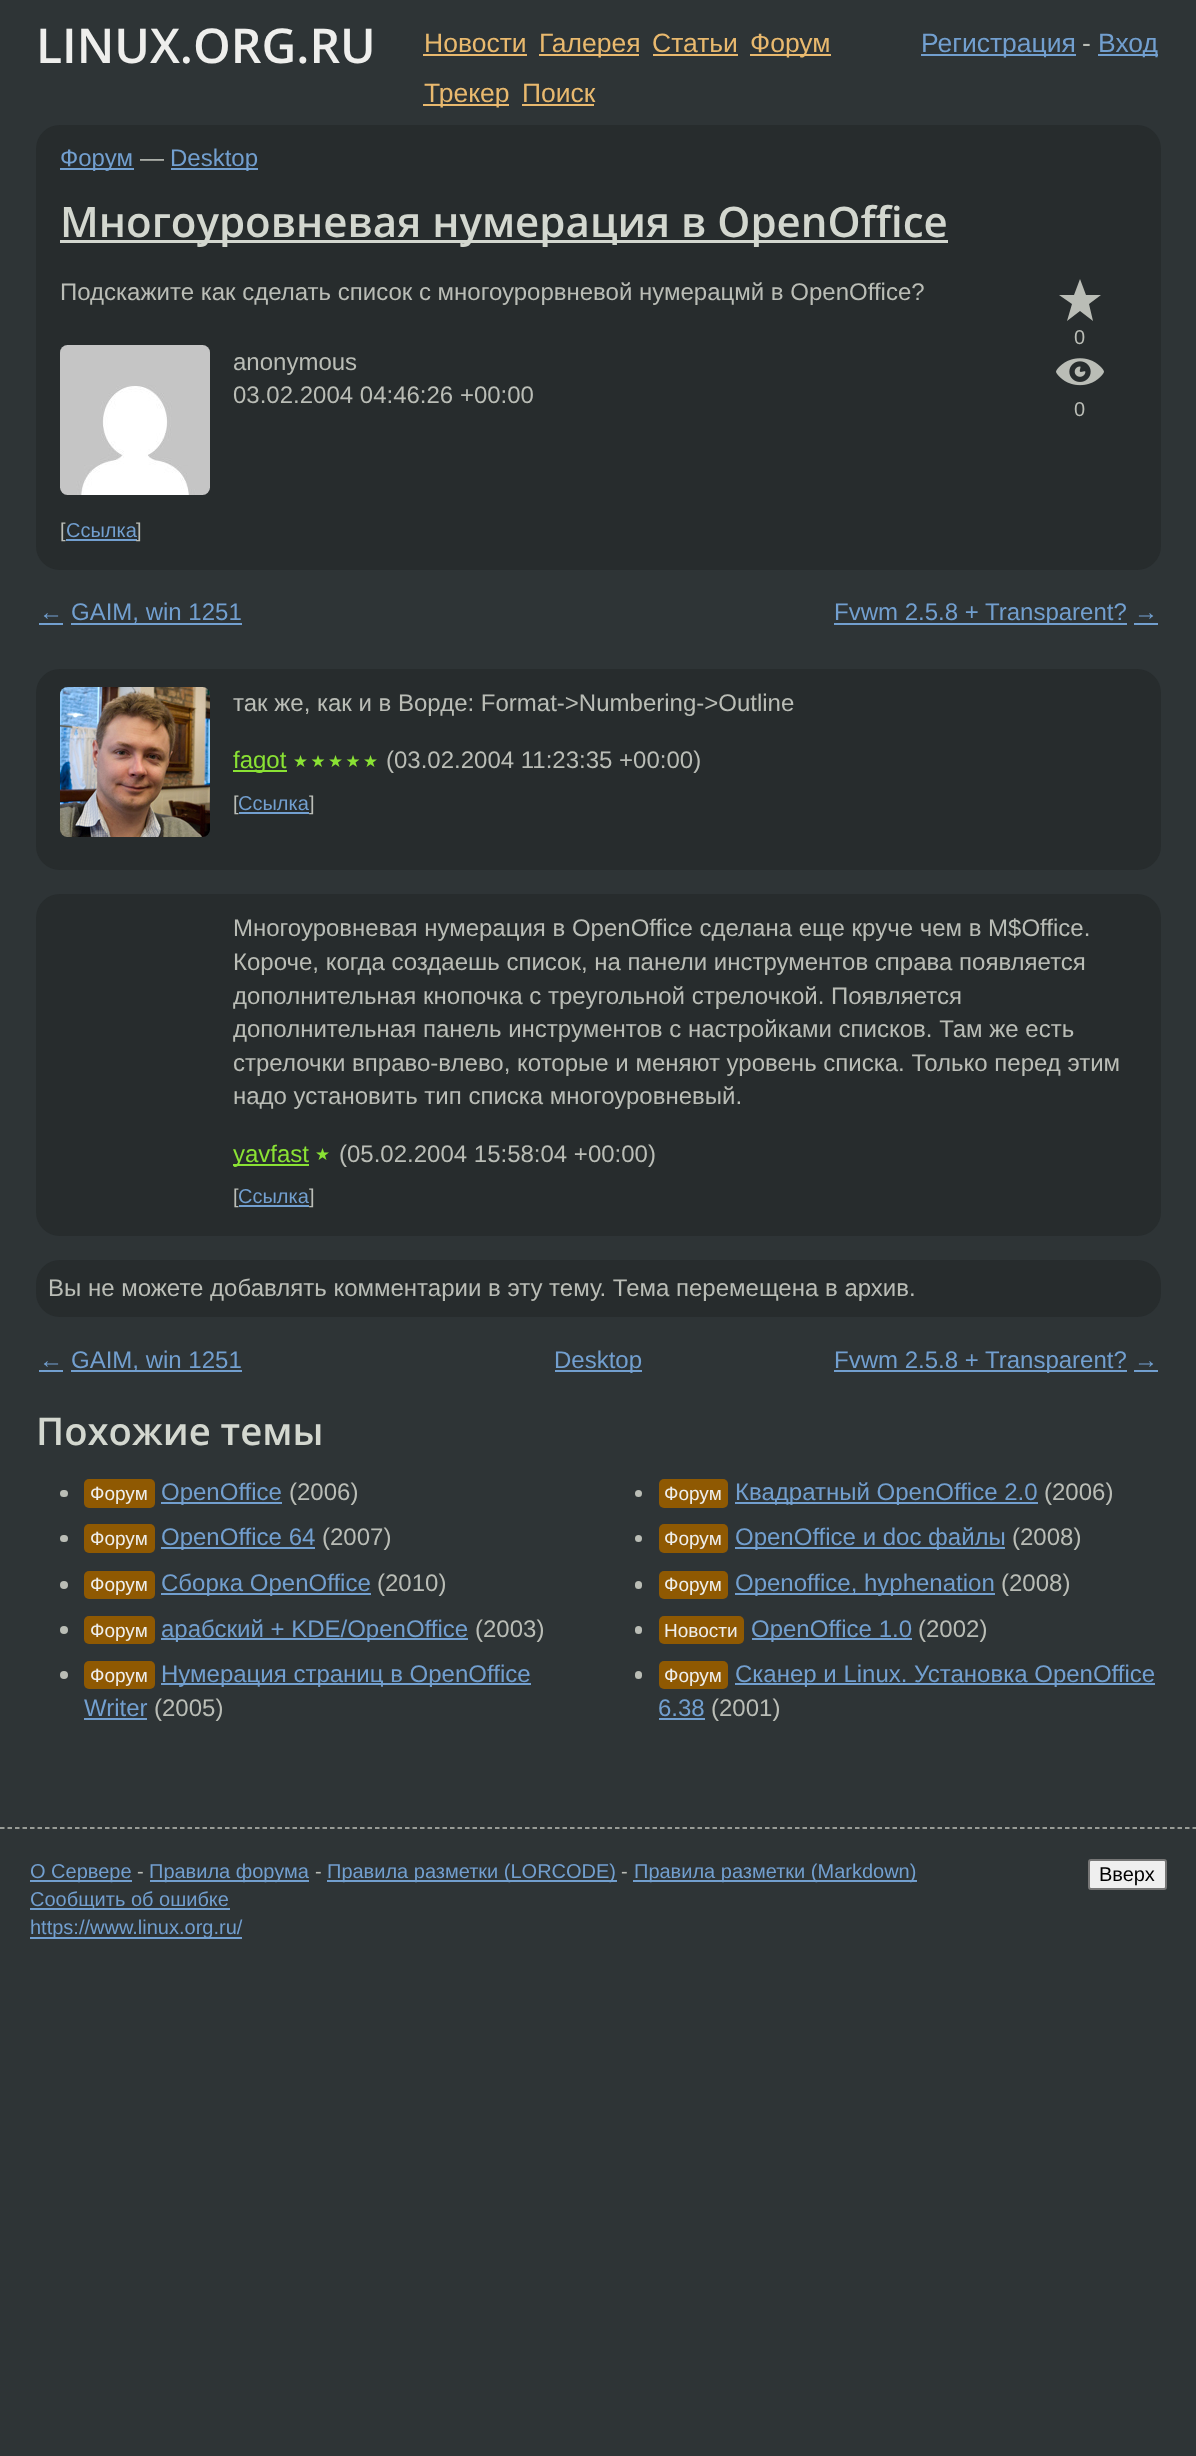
<svg xmlns="http://www.w3.org/2000/svg" width="1196" height="2456">
<rect width="100%" height="100%" fill="#2e3436"/>
<text x="36" y="63" style="font-family:Open Sans;font-size:48px;font-weight:600;fill:#eeeeec">LINUX.ORG.RU</text>
<text x="424" y="52" style="font-family:Liberation Sans;font-size:26.5px;fill:#e9b96e">Новости</text>
<rect x="423" y="54" width="104" height="2" fill="#e9b96e"/>
<rect x="539" y="54" width="100" height="2" fill="#e9b96e"/>
<text x="539" y="52" style="font-family:Liberation Sans;font-size:26.5px;fill:#e9b96e">Галерея</text>
<text x="652" y="52" style="font-family:Liberation Sans;font-size:26.5px;fill:#e9b96e">Статьи</text>
<rect x="653" y="54" width="85" height="2" fill="#e9b96e"/>
<rect x="750" y="54" width="81" height="2" fill="#e9b96e"/>
<text x="750" y="52" style="font-family:Liberation Sans;font-size:26.5px;fill:#e9b96e">Форум</text>
<rect x="423" y="104" width="86" height="2" fill="#e9b96e"/>
<text x="424" y="102" style="font-family:Liberation Sans;font-size:26.5px;fill:#e9b96e">Трекер</text>
<text x="522" y="102" style="font-family:Liberation Sans;font-size:26.5px;fill:#e9b96e">Поиск</text>
<rect x="522" y="104" width="72" height="2" fill="#e9b96e"/>
<rect x="921" y="54" width="155" height="2" fill="#729fcf"/>
<text x="921" y="52" style="font-family:Liberation Sans;font-size:26.5px;fill:#729fcf">Регистрация</text>
<text x="1082" y="52" style="font-family:Liberation Sans;font-size:26.5px;fill:#babdb6">-</text>
<rect x="1098" y="54" width="60" height="2" fill="#729fcf"/>
<text x="1098" y="52" style="font-family:Liberation Sans;font-size:26.5px;fill:#729fcf">Вход</text>
<rect x="36" y="125" width="1125" height="445" rx="24" fill="#272c2d"/>
<rect x="60" y="168" width="74" height="2" fill="#729fcf"/>
<text x="60" y="166" style="font-family:Liberation Sans;font-size:24px;fill:#729fcf">Форум</text>
<text x="140" y="166" style="font-family:Liberation Sans;font-size:24px;fill:#babdb6">—</text>
<rect x="171" y="168" width="87" height="2" fill="#729fcf"/>
<text x="170" y="166" style="font-family:Liberation Sans;font-size:24px;fill:#729fcf">Desktop</text>
<rect x="60" y="240" width="888" height="3" fill="#d3d7cf"/>
<text x="60" y="237" style="font-family:Open Sans;font-size:42.05px;font-weight:600;fill:#d3d7cf">Многоуровневая нумерация в OpenOffice</text>
<text x="60" y="300" style="font-family:Liberation Sans;font-size:24px;fill:#babdb6">Подскажите как сделать список с многоурорвневой нумерацмй в OpenOffice?</text>
<image x="60" y="345" width="150" height="150" href="media/1.png"/>
<text x="233" y="370" style="font-family:Liberation Sans;font-size:24px;fill:#babdb6">anonymous</text>
<text x="233" y="403" style="font-family:Liberation Sans;font-size:24px;fill:#babdb6">03.02.2004 04:46:26 +00:00</text>
<path d="M1080 279l6 16h15l-12 9l4 17l-13-10l-13 10l5-17l-13-9h15z" fill="#babdb6"/>
<text x="1074" y="344" style="font-family:Liberation Sans;font-size:20px;fill:#babdb6">0</text>
<image x="1056" y="358" width="48" height="28" href="media/2.png"/>
<text x="1074" y="416" style="font-family:Liberation Sans;font-size:20px;fill:#babdb6">0</text>
<text x="60" y="537" style="font-family:Liberation Sans;font-size:20px;fill:#babdb6">[</text>
<rect x="66" y="539" width="71" height="2" fill="#729fcf"/>
<text x="66" y="537" style="font-family:Liberation Sans;font-size:20px;fill:#729fcf">Ссылка</text>
<text x="136" y="537" style="font-family:Liberation Sans;font-size:20px;fill:#babdb6">]</text>
<text x="39" y="620" style="font-family:Liberation Sans;font-size:24px;fill:#729fcf">←</text>
<rect x="39" y="623" width="24" height="2" fill="#729fcf"/>
<rect x="71" y="623" width="171" height="2" fill="#729fcf"/>
<text x="71" y="620" style="font-family:Liberation Sans;font-size:24px;fill:#729fcf">GAIM, win 1251</text>
<rect x="834" y="623" width="293" height="2" fill="#729fcf"/>
<text x="834" y="620" style="font-family:Liberation Sans;font-size:24px;fill:#729fcf">Fvwm 2.5.8 + Transparent?</text>
<text x="1134" y="620" style="font-family:Liberation Sans;font-size:24px;fill:#729fcf">→</text>
<rect x="1134" y="623" width="24" height="2" fill="#729fcf"/>
<rect x="36" y="669" width="1125" height="201" rx="24" fill="#272c2d"/>
<image x="60" y="687" width="150" height="150" href="media/3.png"/>
<text x="233" y="711" style="font-family:Liberation Sans;font-size:24px;fill:#babdb6">так же, как и в Ворде: Format-&gt;Numbering-&gt;Outline</text>
<rect x="233" y="770" width="54" height="2" fill="#8ae234"/>
<text x="233" y="768" style="font-family:Liberation Sans;font-size:24px;fill:#8ae234">fagot</text>
<text x="293" y="767" style="font-family:DejaVu Sans;font-size:16.75px;letter-spacing:2.5px;fill:#8ae234">★★★★★</text>
<text x="386" y="768" style="font-family:Liberation Sans;font-size:24px;fill:#babdb6">(03.02.2004 11:23:35 +00:00)</text>
<text x="233" y="810" style="font-family:Liberation Sans;font-size:20px;fill:#babdb6">[</text>
<text x="238" y="810" style="font-family:Liberation Sans;font-size:20px;fill:#729fcf">Ссылка</text>
<rect x="239" y="812" width="70" height="2" fill="#729fcf"/>
<text x="309" y="810" style="font-family:Liberation Sans;font-size:20px;fill:#babdb6">]</text>
<rect x="36" y="894" width="1125" height="342" rx="24" fill="#272c2d"/>
<text x="233" y="936" style="font-family:Liberation Sans;font-size:24px;fill:#babdb6">Многоуровневая нумерация в OpenOffice сделана еще круче чем в M$Office.</text>
<text x="233" y="970" style="font-family:Liberation Sans;font-size:24px;fill:#babdb6">Короче, когда создаешь список, на панели инструментов справа появляется</text>
<text x="233" y="1004" style="font-family:Liberation Sans;font-size:24px;fill:#babdb6">дополнительная кнопочка с треугольной стрелочкой. Появляется</text>
<text x="233" y="1037" style="font-family:Liberation Sans;font-size:24px;fill:#babdb6">дополнительная панель инструментов с настройками списков. Там же есть</text>
<text x="233" y="1071" style="font-family:Liberation Sans;font-size:24px;fill:#babdb6">стрелочки вправо-влево, которые и меняют уровень списка. Только перед этим</text>
<text x="233" y="1104" style="font-family:Liberation Sans;font-size:24px;fill:#babdb6">надо установить тип списка многоуровневый.</text>
<rect x="233" y="1164" width="76" height="2" fill="#8ae234"/>
<text x="233" y="1162" style="font-family:Liberation Sans;font-size:24px;fill:#8ae234">yavfast</text>
<text x="315" y="1160" style="font-family:DejaVu Sans;font-size:16.75px;letter-spacing:2.5px;fill:#8ae234">★</text>
<text x="339" y="1162" style="font-family:Liberation Sans;font-size:24px;fill:#babdb6">(05.02.2004 15:58:04 +00:00)</text>
<text x="233" y="1203" style="font-family:Liberation Sans;font-size:20px;fill:#babdb6">[</text>
<text x="238" y="1203" style="font-family:Liberation Sans;font-size:20px;fill:#729fcf">Ссылка</text>
<rect x="239" y="1205" width="70" height="2" fill="#729fcf"/>
<text x="309" y="1203" style="font-family:Liberation Sans;font-size:20px;fill:#babdb6">]</text>
<rect x="36" y="1260" width="1125" height="57" rx="24" fill="#272c2d"/>
<text x="48" y="1296" style="font-family:Liberation Sans;font-size:24px;fill:#babdb6">Вы не можете добавлять комментарии в эту тему. Тема перемещена в архив.</text>
<text x="39" y="1368" style="font-family:Liberation Sans;font-size:24px;fill:#729fcf">←</text>
<rect x="39" y="1370" width="24" height="2" fill="#729fcf"/>
<rect x="71" y="1370" width="171" height="2" fill="#729fcf"/>
<text x="71" y="1368" style="font-family:Liberation Sans;font-size:24px;fill:#729fcf">GAIM, win 1251</text>
<rect x="555" y="1370" width="87" height="2" fill="#729fcf"/>
<text x="554" y="1368" style="font-family:Liberation Sans;font-size:24px;fill:#729fcf">Desktop</text>
<rect x="834" y="1370" width="293" height="2" fill="#729fcf"/>
<text x="834" y="1368" style="font-family:Liberation Sans;font-size:24px;fill:#729fcf">Fvwm 2.5.8 + Transparent?</text>
<text x="1134" y="1368" style="font-family:Liberation Sans;font-size:24px;fill:#729fcf">→</text>
<rect x="1134" y="1370" width="24" height="2" fill="#729fcf"/>
<text x="36" y="1445" style="font-family:Open Sans;font-size:38.25px;font-weight:600;fill:#d3d7cf">Похожие темы</text>
<rect x="60" y="1490" width="8" height="7" rx="3.5" fill="#babdb6"/>
<rect x="84" y="1479" width="71" height="29" rx="5" fill="#8f5902"/>
<text x="90" y="1500" style="font-family:Liberation Sans;font-size:19px;fill:#eeeeec">Форум</text>
<rect x="161" y="1502" width="121" height="2" fill="#729fcf"/>
<text x="161" y="1500" style="font-family:Liberation Sans;font-size:24px;fill:#729fcf">OpenOffice</text>
<text x="289" y="1500" style="font-family:Liberation Sans;font-size:24px;fill:#babdb6">(2006)</text>
<rect x="60" y="1535" width="8" height="7" rx="3.5" fill="#babdb6"/>
<rect x="84" y="1524" width="71" height="29" rx="5" fill="#8f5902"/>
<text x="90" y="1545" style="font-family:Liberation Sans;font-size:19px;fill:#eeeeec">Форум</text>
<rect x="161" y="1547" width="154" height="2" fill="#729fcf"/>
<text x="161" y="1545" style="font-family:Liberation Sans;font-size:24px;fill:#729fcf">OpenOffice 64</text>
<text x="322" y="1545" style="font-family:Liberation Sans;font-size:24px;fill:#babdb6">(2007)</text>
<circle cx="64" cy="1585" r="4" fill="#babdb6"/>
<rect x="84" y="1571" width="71" height="28" rx="5" fill="#8f5902"/>
<text x="90" y="1591" style="font-family:Liberation Sans;font-size:19px;fill:#eeeeec">Форум</text>
<rect x="161" y="1593" width="210" height="2" fill="#729fcf"/>
<text x="161" y="1591" style="font-family:Liberation Sans;font-size:24px;fill:#729fcf">Сборка OpenOffice</text>
<text x="377" y="1591" style="font-family:Liberation Sans;font-size:24px;fill:#babdb6">(2010)</text>
<circle cx="64" cy="1630" r="4" fill="#babdb6"/>
<rect x="84" y="1616" width="71" height="28" rx="5" fill="#8f5902"/>
<text x="90" y="1637" style="font-family:Liberation Sans;font-size:19px;fill:#eeeeec">Форум</text>
<rect x="161" y="1638" width="307" height="2" fill="#729fcf"/>
<text x="161" y="1637" style="font-family:Liberation Sans;font-size:24px;fill:#729fcf">арабский + KDE/OpenOffice</text>
<text x="475" y="1637" style="font-family:Liberation Sans;font-size:24px;fill:#babdb6">(2003)</text>
<circle cx="64" cy="1675" r="4" fill="#babdb6"/>
<rect x="84" y="1661" width="71" height="28" rx="5" fill="#8f5902"/>
<text x="90" y="1682" style="font-family:Liberation Sans;font-size:19px;fill:#eeeeec">Форум</text>
<rect x="161" y="1683" width="370" height="2" fill="#729fcf"/>
<text x="161" y="1682" style="font-family:Liberation Sans;font-size:24px;fill:#729fcf">Нумерация страниц в OpenOffice</text>
<text x="84" y="1716" style="font-family:Liberation Sans;font-size:24px;fill:#729fcf">Writer</text>
<rect x="84" y="1718" width="63" height="2" fill="#729fcf"/>
<text x="154" y="1716" style="font-family:Liberation Sans;font-size:24px;fill:#babdb6">(2005)</text>
<circle cx="638.5" cy="1493.5" r="3.5" fill="#babdb6"/>
<rect x="659" y="1479" width="69" height="29" rx="5" fill="#8f5902"/>
<text x="664" y="1500" style="font-family:Liberation Sans;font-size:19px;fill:#eeeeec">Форум</text>
<rect x="735" y="1502" width="303" height="2" fill="#729fcf"/>
<text x="735" y="1500" style="font-family:Liberation Sans;font-size:24px;fill:#729fcf">Квадратный OpenOffice 2.0</text>
<text x="1044" y="1500" style="font-family:Liberation Sans;font-size:24px;fill:#babdb6">(2006)</text>
<circle cx="638.5" cy="1538.5" r="3.5" fill="#babdb6"/>
<rect x="659" y="1524" width="69" height="29" rx="5" fill="#8f5902"/>
<text x="664" y="1545" style="font-family:Liberation Sans;font-size:19px;fill:#eeeeec">Форум</text>
<rect x="735" y="1547" width="270" height="2" fill="#729fcf"/>
<text x="735" y="1545" style="font-family:Liberation Sans;font-size:24px;fill:#729fcf">OpenOffice и doc файлы</text>
<text x="1012" y="1545" style="font-family:Liberation Sans;font-size:24px;fill:#babdb6">(2008)</text>
<rect x="635" y="1581" width="7" height="8" rx="3.5" fill="#babdb6"/>
<rect x="659" y="1571" width="69" height="28" rx="5" fill="#8f5902"/>
<text x="664" y="1591" style="font-family:Liberation Sans;font-size:19px;fill:#eeeeec">Форум</text>
<rect x="735" y="1593" width="260" height="2" fill="#729fcf"/>
<text x="735" y="1591" style="font-family:Liberation Sans;font-size:24px;fill:#729fcf">Openoffice, hyphenation</text>
<text x="1001" y="1591" style="font-family:Liberation Sans;font-size:24px;fill:#babdb6">(2008)</text>
<rect x="635" y="1626" width="7" height="8" rx="3.5" fill="#babdb6"/>
<rect x="659" y="1616" width="85" height="28" rx="5" fill="#8f5902"/>
<text x="664" y="1637" style="font-family:Liberation Sans;font-size:19px;fill:#eeeeec">Новости</text>
<rect x="752" y="1638" width="160" height="2" fill="#729fcf"/>
<text x="751" y="1637" style="font-family:Liberation Sans;font-size:24px;fill:#729fcf">OpenOffice 1.0</text>
<text x="918" y="1637" style="font-family:Liberation Sans;font-size:24px;fill:#babdb6">(2002)</text>
<rect x="635" y="1671" width="7" height="8" rx="3.5" fill="#babdb6"/>
<rect x="659" y="1661" width="69" height="28" rx="5" fill="#8f5902"/>
<text x="664" y="1682" style="font-family:Liberation Sans;font-size:19px;fill:#eeeeec">Форум</text>
<rect x="735" y="1683" width="420" height="2" fill="#729fcf"/>
<text x="735" y="1682" style="font-family:Liberation Sans;font-size:24px;fill:#729fcf">Сканер и Linux. Установка OpenOffice</text>
<text x="658" y="1716" style="font-family:Liberation Sans;font-size:24px;fill:#729fcf">6.38</text>
<rect x="659" y="1718" width="46" height="2" fill="#729fcf"/>
<text x="711" y="1716" style="font-family:Liberation Sans;font-size:24px;fill:#babdb6">(2001)</text>
<path d="M0 1828h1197" fill="none" stroke="#babdb6" stroke-width="1.5" stroke-dasharray="4.5 3"/>
<rect x="30" y="1880" width="102" height="2" fill="#729fcf"/>
<text x="30" y="1878" style="font-family:Liberation Sans;font-size:20px;fill:#729fcf">О Сервере</text>
<text x="137" y="1878" style="font-family:Liberation Sans;font-size:20px;fill:#babdb6">-</text>
<rect x="150" y="1880" width="159" height="2" fill="#729fcf"/>
<text x="149" y="1878" style="font-family:Liberation Sans;font-size:20px;fill:#729fcf">Правила форума</text>
<text x="315" y="1878" style="font-family:Liberation Sans;font-size:20px;fill:#babdb6">-</text>
<rect x="327" y="1880" width="290" height="2" fill="#729fcf"/>
<text x="327" y="1878" style="font-family:Liberation Sans;font-size:20px;fill:#729fcf">Правила разметки (LORCODE)</text>
<text x="621" y="1878" style="font-family:Liberation Sans;font-size:20px;fill:#babdb6">-</text>
<rect x="633" y="1880" width="284" height="2" fill="#729fcf"/>
<text x="634" y="1878" style="font-family:Liberation Sans;font-size:20px;fill:#729fcf">Правила разметки (Markdown)</text>
<rect x="30" y="1908" width="200" height="2" fill="#729fcf"/>
<text x="30" y="1906" style="font-family:Liberation Sans;font-size:20px;fill:#729fcf">Сообщить об ошибке</text>
<rect x="30" y="1937" width="212" height="2" fill="#729fcf"/>
<text x="30" y="1934" style="font-family:Liberation Sans;font-size:20px;fill:#729fcf">https://www.linux.org.ru/</text>
<rect x="1089" y="1860" width="77" height="29" rx="2" fill="#efefef" stroke="#767676" stroke-width="2"/>
<text x="1099" y="1881" style="font-family:Liberation Sans;font-size:20px;fill:#000">Вверх</text>
</svg>
